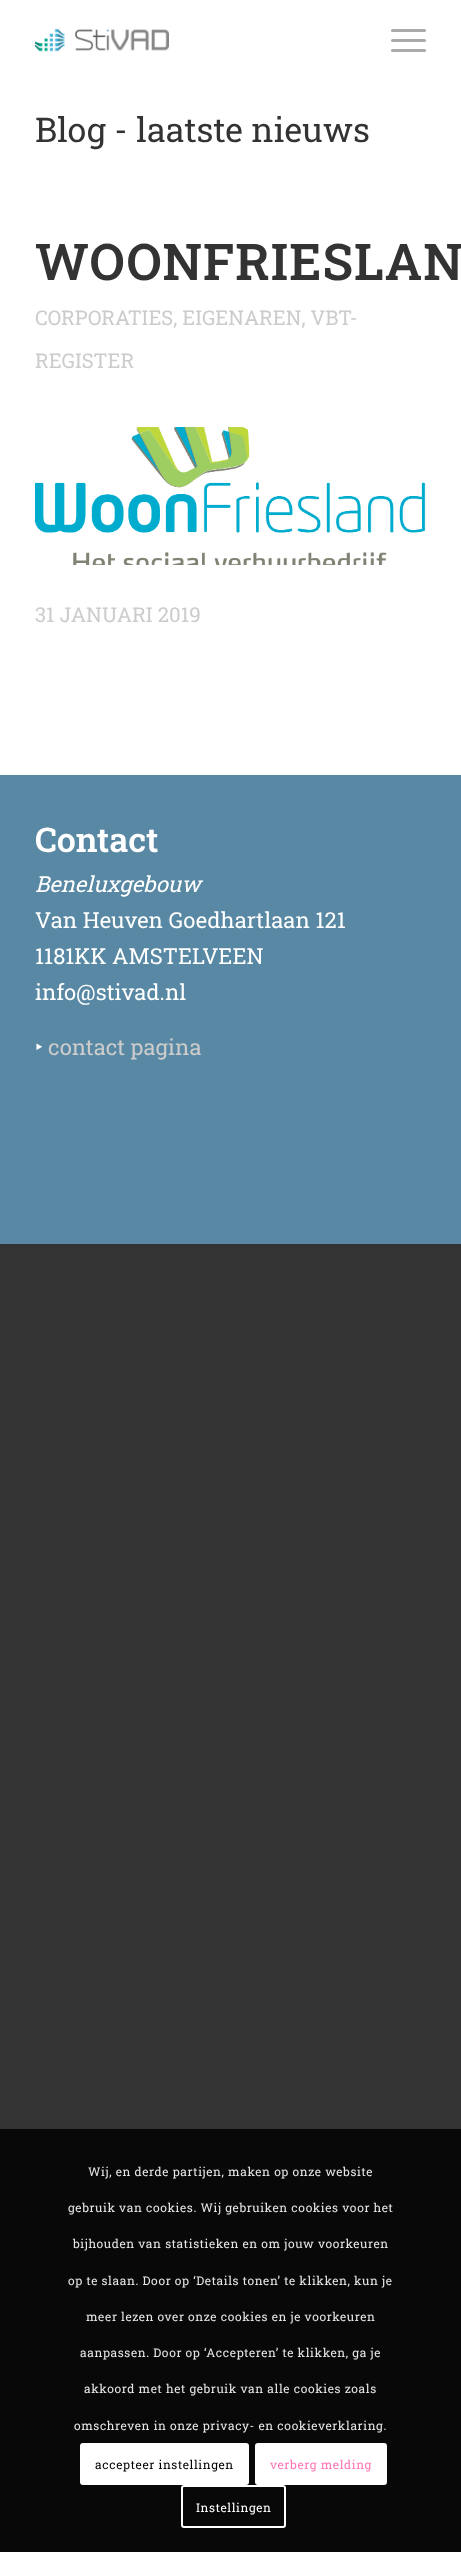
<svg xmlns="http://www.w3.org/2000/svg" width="461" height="2552">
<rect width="100%" height="100%" fill="#333"/>
<rect width="461" height="775" fill="#fff"/>
<image x="35" y="28" width="134" height="24" href="media/1.png"/>
<rect x="391" y="39" width="35" height="3" rx="1.5" fill="#aaa"/>
<rect x="391" y="29" width="35" height="3" rx="1.5" fill="#aaa"/>
<rect x="391" y="49" width="35" height="3" rx="1.5" fill="#aaa"/>
<text x="35" y="142" style="font-family:Roboto Slab;font-size:34px;fill:#333">Blog - laatste nieuws</text>
<text x="35" y="280" style="font-family:Roboto Slab;font-size:50.5px;font-weight:600;letter-spacing:1px;fill:#333">WOONFRIESLAN</text>
<text x="35" y="325" style="font-family:Roboto Slab;font-size:20.25px;fill:#ccc">CORPORATIES, EIGENAREN, VBT-</text>
<text x="35" y="368" style="font-family:Roboto Slab;font-size:20.25px;fill:#ccc">REGISTER</text>
<image x="35" y="427" width="391" height="138" href="media/2.png"/>
<text x="35" y="622" style="font-family:Roboto Slab;font-size:20.5px;fill:#ccc">31 JANUARI 2019</text>
<rect y="775" width="461" height="469" fill="#5888a3"/>
<text x="35" y="852" style="font-family:Roboto Slab;font-size:34px;font-weight:600;fill:#fff">Contact</text>
<text x="35" y="892" style="font-family:Roboto Slab;font-size:22px;font-style:italic;fill:#fff">Beneluxgebouw</text>
<text x="35" y="928" style="font-family:Roboto Slab;font-size:22px;fill:#fff">Van Heuven Goedhartlaan 121</text>
<text x="35" y="964" style="font-family:Roboto Slab;font-size:22px;fill:#fff">1181KK AMSTELVEEN</text>
<text x="35" y="1000" style="font-family:Roboto Slab;font-size:22px;fill:#fff">info@stivad.nl</text>
<text x="35" y="1055" style="font-family:Noto Sans;font-size:22px;fill:#fff">‣</text>
<text x="48" y="1055" style="font-family:Roboto Slab;font-size:22px;fill:#ccc">contact pagina</text>
<rect y="2129" width="461" height="423" fill="#080808"/>
<text x="88" y="2176" style="font-family:Roboto Slab;font-size:12px;letter-spacing:0.6px;fill:#e6e6e6">Wij, en derde partijen, maken op onze website</text>
<text x="68" y="2212" style="font-family:Roboto Slab;font-size:12px;letter-spacing:0.6px;fill:#e6e6e6">gebruik van cookies. Wij gebruiken cookies voor het</text>
<text x="73" y="2248" style="font-family:Roboto Slab;font-size:12px;letter-spacing:0.6px;fill:#e6e6e6">bijhouden van statistieken en om jouw voorkeuren</text>
<text x="68" y="2285" style="font-family:Roboto Slab;font-size:12px;letter-spacing:0.6px;fill:#e6e6e6">op te slaan. Door op ‘Details tonen’ te klikken, kun je</text>
<text x="86" y="2321" style="font-family:Roboto Slab;font-size:12px;letter-spacing:0.6px;fill:#e6e6e6">meer lezen over onze cookies en je voorkeuren</text>
<text x="80" y="2357" style="font-family:Roboto Slab;font-size:12px;letter-spacing:0.6px;fill:#e6e6e6">aanpassen. Door op ‘Accepteren’ te klikken, ga je</text>
<text x="84" y="2393" style="font-family:Roboto Slab;font-size:12px;letter-spacing:0.6px;fill:#e6e6e6">akkoord met het gebruik van alle cookies zoals</text>
<text x="74" y="2430" style="font-family:Roboto Slab;font-size:12px;letter-spacing:0.6px;fill:#e6e6e6">omschreven in onze privacy- en cookieverklaring.</text>
<rect x="80" y="2443" width="169" height="42" rx="3" fill="#fff"/>
<text x="95" y="2469" style="font-family:Roboto Slab;font-size:12px;letter-spacing:0.6px;fill:#000">accepteer instellingen</text>
<rect x="256" y="2444" width="130" height="40" rx="2" fill="#fff" stroke="#fff" stroke-width="2"/>
<text x="270" y="2469" style="font-family:Roboto Slab;font-size:12px;letter-spacing:0.6px;fill:#ff75b5">verberg melding</text>
<rect x="182" y="2486" width="103" height="41" rx="2" fill="none" stroke="#fff" stroke-width="2"/>
<text x="196" y="2512" style="font-family:Roboto Slab;font-size:12px;letter-spacing:0.6px;fill:#fff">Instellingen</text>
</svg>
